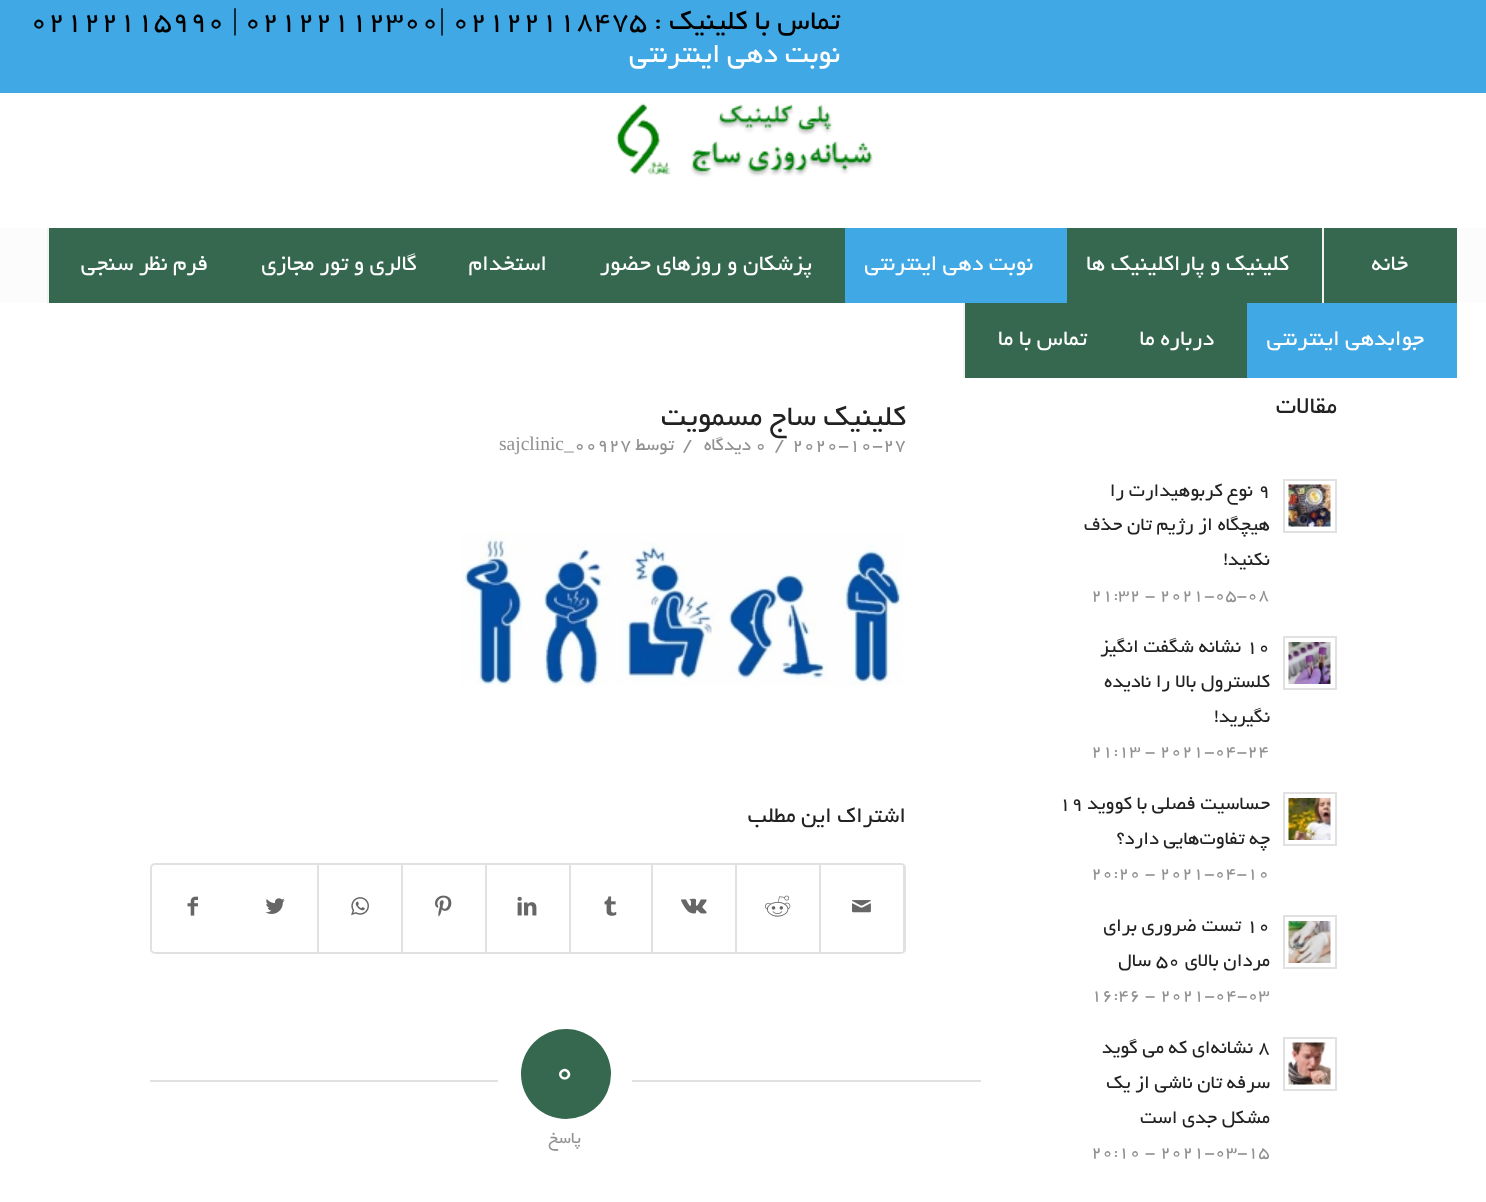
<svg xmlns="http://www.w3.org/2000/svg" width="1486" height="1202">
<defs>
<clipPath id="clip1"><rect x="1056" y="912" width="213" height="104"/></clipPath>
<clipPath id="clip2"><rect x="1056" y="1034" width="213" height="139"/></clipPath>
<clipPath id="clip3"><rect x="152" y="864" width="753" height="89" rx="3"/></clipPath>
</defs>
<rect width="100%" height="100%" fill="#fff"/>
<rect width="1486" height="93" fill="#40a8e4"/>
<text x="840" y="29" style="font-family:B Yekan;font-size:30px;direction:rtl;fill:#000">تماس با کلینیک :</text>
<text x="452" y="29" style="font-family:B Yekan;font-size:30px;fill:#000">۰۲۱۲۲۱۱۸۴۷۵</text>
<text x="439" y="29" style="font-family:Liberation Serif;font-size:30px;fill:#000">|</text>
<text x="244" y="29" style="font-family:B Yekan;font-size:30px;fill:#000">۰۲۱۲۲۱۱۲۳۰۰</text>
<text x="232" y="29" style="font-family:Liberation Serif;font-size:30px;fill:#000">|</text>
<text x="30" y="29" style="font-family:B Yekan;font-size:30px;fill:#000">۰۲۱۲۲۱۱۵۹۹۰</text>
<text x="840" y="62" style="font-family:B Yekan;font-size:30px;direction:rtl;fill:#fff">نوبت دهی اینترنتی</text>
<image x="616" y="103" width="257" height="74" href="media/1.png"/>
<rect y="228" width="1486" height="75" fill="#fcfcfc"/>
<rect x="1324" y="228" width="133" height="75" fill="#366850"/>
<rect x="1322" y="228" width="2" height="75" fill="#f2f2f2"/>
<text x="1408" y="270" style="font-family:B Yekan;font-size:24px;direction:rtl;fill:#fff">خانه</text>
<rect x="1067" y="228" width="255" height="75" fill="#366850"/>
<text x="1289" y="270" style="font-family:B Yekan;font-size:24px;direction:rtl;fill:#fff">کلینیک و پاراکلینیک ها</text>
<rect x="845" y="228" width="222" height="75" fill="#40a8e4"/>
<text x="1033" y="270" style="font-family:B Yekan;font-size:24px;direction:rtl;fill:#fff">نوبت دهی اینترنتی</text>
<rect x="49" y="228" width="796" height="75" fill="#366850"/>
<text x="812" y="270" style="font-family:B Yekan;font-size:24px;direction:rtl;fill:#fff">پزشکان و روزهای حضور</text>
<text x="547" y="270" style="font-family:B Yekan;font-size:24px;direction:rtl;fill:#fff">استخدام</text>
<text x="417" y="270" style="font-family:B Yekan;font-size:24px;direction:rtl;fill:#fff">گالری و تور مجازی</text>
<rect x="47" y="228" width="2" height="75" fill="#f2f2f2"/>
<text x="208" y="270" style="font-family:B Yekan;font-size:24px;direction:rtl;fill:#fff">فرم نظر سنجی</text>
<rect x="1247" y="303" width="210" height="75" fill="#40a8e4"/>
<text x="1424" y="345" style="font-family:B Yekan;font-size:24px;direction:rtl;fill:#fff">جوابدهی اینترنتی</text>
<rect x="965" y="303" width="282" height="75" fill="#366850"/>
<text x="1214" y="345" style="font-family:B Yekan;font-size:24px;direction:rtl;fill:#fff">درباره ما</text>
<rect x="963" y="303" width="2" height="75" fill="#f2f2f2"/>
<text x="1087" y="345" style="font-family:B Yekan;font-size:24px;direction:rtl;fill:#fff">تماس با ما</text>
<text x="1337" y="413" style="font-family:B Yekan;font-size:26px;direction:rtl;fill:#222">مقالات</text>
<rect x="1284" y="480" width="52" height="52" fill="none" stroke="#e1e1e1" stroke-width="2"/>
<image x="1288" y="484" width="43" height="43" href="media/2.png"/>
<text x="1258" y="496" style="font-family:B Yekan;font-size:20.5px;fill:#222">۹</text>
<text x="1253" y="496" style="font-family:B Yekan;font-size:20.5px;direction:rtl;fill:#222">نوع کربوهیدارت را</text>
<text x="1270" y="530" style="font-family:B Yekan;font-size:20.5px;direction:rtl;fill:#222">هیچگاه از رژیم تان حذف</text>
<text x="1270" y="565" style="font-family:B Yekan;font-size:20.5px;direction:rtl;fill:#222">نکنید!</text>
<text x="1091" y="600" style="font-family:B Yekan;font-size:18.75px;fill:#919191">21:32 - 2021-05-08</text>
<rect x="1284" y="637" width="52" height="52" fill="none" stroke="#e1e1e1" stroke-width="2"/>
<image x="1288" y="642" width="43" height="42" href="media/3.png"/>
<text x="1246" y="652" style="font-family:B Yekan;font-size:20.5px;fill:#222">۱۰</text>
<text x="1241" y="652" style="font-family:B Yekan;font-size:20.5px;direction:rtl;fill:#222">نشانه شگفت انگیز</text>
<text x="1270" y="687" style="font-family:B Yekan;font-size:20.5px;direction:rtl;fill:#222">کلسترول بالا را نادیده</text>
<text x="1270" y="722" style="font-family:B Yekan;font-size:20.5px;direction:rtl;fill:#222">نگیرید!</text>
<text x="1091" y="756" style="font-family:B Yekan;font-size:18.75px;fill:#919191">21:13 - 2021-04-24</text>
<rect x="1284" y="793" width="52" height="52" fill="none" stroke="#e1e1e1" stroke-width="2"/>
<image x="1288" y="798" width="43" height="42" href="media/4.png"/>
<text x="1270" y="809" style="font-family:B Yekan;font-size:20.5px;direction:rtl;fill:#222">حساسیت فصلی با کووید</text>
<text x="1059" y="809" style="font-family:B Yekan;font-size:20.5px;fill:#222">۱۹</text>
<text x="1270" y="844" style="font-family:B Yekan;font-size:20.5px;direction:rtl;fill:#222">چه تفاوت‌هایی دارد؟</text>
<text x="1091" y="878" style="font-family:B Yekan;font-size:18.75px;fill:#919191">20:20 - 2021-04-10</text>
<rect x="1284" y="916" width="52" height="52" fill="none" stroke="#e1e1e1" stroke-width="2"/>
<image x="1288" y="921" width="43" height="42" href="media/5.png"/>
<text x="1246" y="931" style="font-family:B Yekan;font-size:20.5px;fill:#222">10</text>
<text x="1241" y="931" style="font-family:B Yekan;font-size:20.5px;direction:rtl;fill:#222">تست ضروری برای</text>
<text x="1270" y="966" style="font-family:B Yekan;font-size:20.5px;direction:rtl;fill:#222">مردان بالای</text>
<text x="1156" y="966" style="font-family:B Yekan;font-size:20.5px;fill:#222">50</text>
<text x="1151" y="966" style="font-family:B Yekan;font-size:20.5px;direction:rtl;fill:#222">سال</text>
<g clip-path="url(#clip1)">
<text x="1160" y="1000" style="font-family:B Yekan;font-size:18.75px;fill:#919191">2021-04-03</text>
</g>
<text x="1091" y="1000" style="font-family:B Yekan;font-size:18.75px;fill:#919191">16:46 -</text>
<rect x="1284" y="1038" width="52" height="52" fill="none" stroke="#e1e1e1" stroke-width="2"/>
<image x="1288" y="1042" width="43" height="43" href="media/6.png"/>
<text x="1258" y="1053" style="font-family:B Yekan;font-size:20.5px;fill:#222">۸</text>
<text x="1253" y="1053" style="font-family:B Yekan;font-size:20.5px;direction:rtl;fill:#222">نشانه‌ای که می گوید</text>
<text x="1270" y="1088" style="font-family:B Yekan;font-size:20.5px;direction:rtl;fill:#222">سرفه تان ناشی از یک</text>
<text x="1270" y="1123" style="font-family:B Yekan;font-size:20.5px;direction:rtl;fill:#222">مشکل جدی است</text>
<g clip-path="url(#clip2)">
<text x="1160" y="1157" style="font-family:B Yekan;font-size:18.75px;fill:#919191">2021-03-15</text>
</g>
<text x="1091" y="1157" style="font-family:B Yekan;font-size:18.75px;fill:#919191">20:10 -</text>
<text x="906" y="425" style="font-family:B Yekan;font-size:31.5px;direction:rtl;fill:#222">کلینیک ساج مسمویت</text>
<text x="792" y="450" style="font-family:B Yekan;font-size:19.5px;fill:#919191">2020-10-27</text>
<text x="774" y="450" style="font-family:B Yekan;font-size:22px;fill:#919191">/</text>
<text x="755" y="450" style="font-family:B Yekan;font-size:19.5px;fill:#919191">0</text>
<text x="751" y="450" style="font-family:B Yekan;font-size:19.5px;direction:rtl;fill:#919191">دیدگاه</text>
<text x="682" y="450" style="font-family:B Yekan;font-size:22px;fill:#919191">/</text>
<text x="674" y="450" style="font-family:B Yekan;font-size:19.5px;direction:rtl;fill:#919191">توسط</text>
<text x="574" y="450" style="font-family:B Yekan;font-size:19.5px;fill:#919191">00927</text>
<text x="499" y="450" style="font-family:Liberation Serif;font-size:19.5px;fill:#919191">sajclinic_</text>
<image x="461" y="532" width="442" height="154" href="media/7.png"/>
<text x="906" y="822" style="font-family:B Yekan;font-size:24px;direction:rtl;fill:#222">اشتراک این مطلب</text>
<rect x="151" y="864" width="754" height="89" rx="4" fill="none" stroke="#e1e1e1" stroke-width="2"/>
<g clip-path="url(#clip3)">
<rect x="903" y="864" width="2" height="89" fill="#e1e1e1"/>
</g>
<image x="852" y="900" width="19" height="13" href="media/8.png"/>
<rect x="819" y="864" width="2" height="89" fill="#e1e1e1"/>
<image x="765" y="895" width="26" height="22" href="media/9.png"/>
<rect x="735" y="864" width="2" height="89" fill="#e1e1e1"/>
<image x="681" y="898" width="26" height="16" href="media/10.png"/>
<rect x="651" y="864" width="2" height="89" fill="#e1e1e1"/>
<image x="604" y="896" width="13" height="20" href="media/11.png"/>
<rect x="569" y="864" width="2" height="89" fill="#e1e1e1"/>
<image x="517" y="896" width="20" height="20" href="media/12.png"/>
<rect x="485" y="864" width="2" height="89" fill="#e1e1e1"/>
<image x="435" y="895" width="17" height="22" href="media/13.png"/>
<rect x="401" y="864" width="2" height="89" fill="#e1e1e1"/>
<image x="351" y="897" width="18" height="19" href="media/14.png"/>
<rect x="317" y="864" width="2" height="89" fill="#e1e1e1"/>
<image x="265" y="898" width="20" height="16" href="media/15.png"/>
<image x="187" y="896" width="11" height="20" href="media/16.png"/>
<circle cx="566" cy="1074" r="45" fill="#366850"/>
<text x="554" y="1080" style="font-family:B Yekan;font-size:36px;fill:#fff">0</text>
<rect x="632" y="1080" width="349" height="2" fill="#e1e1e1"/>
<rect x="150" y="1080" width="348" height="2" fill="#e1e1e1"/>
<text x="581" y="1143" style="font-family:B Yekan;font-size:18px;direction:rtl;fill:#919191">پاسخ</text>
</svg>
